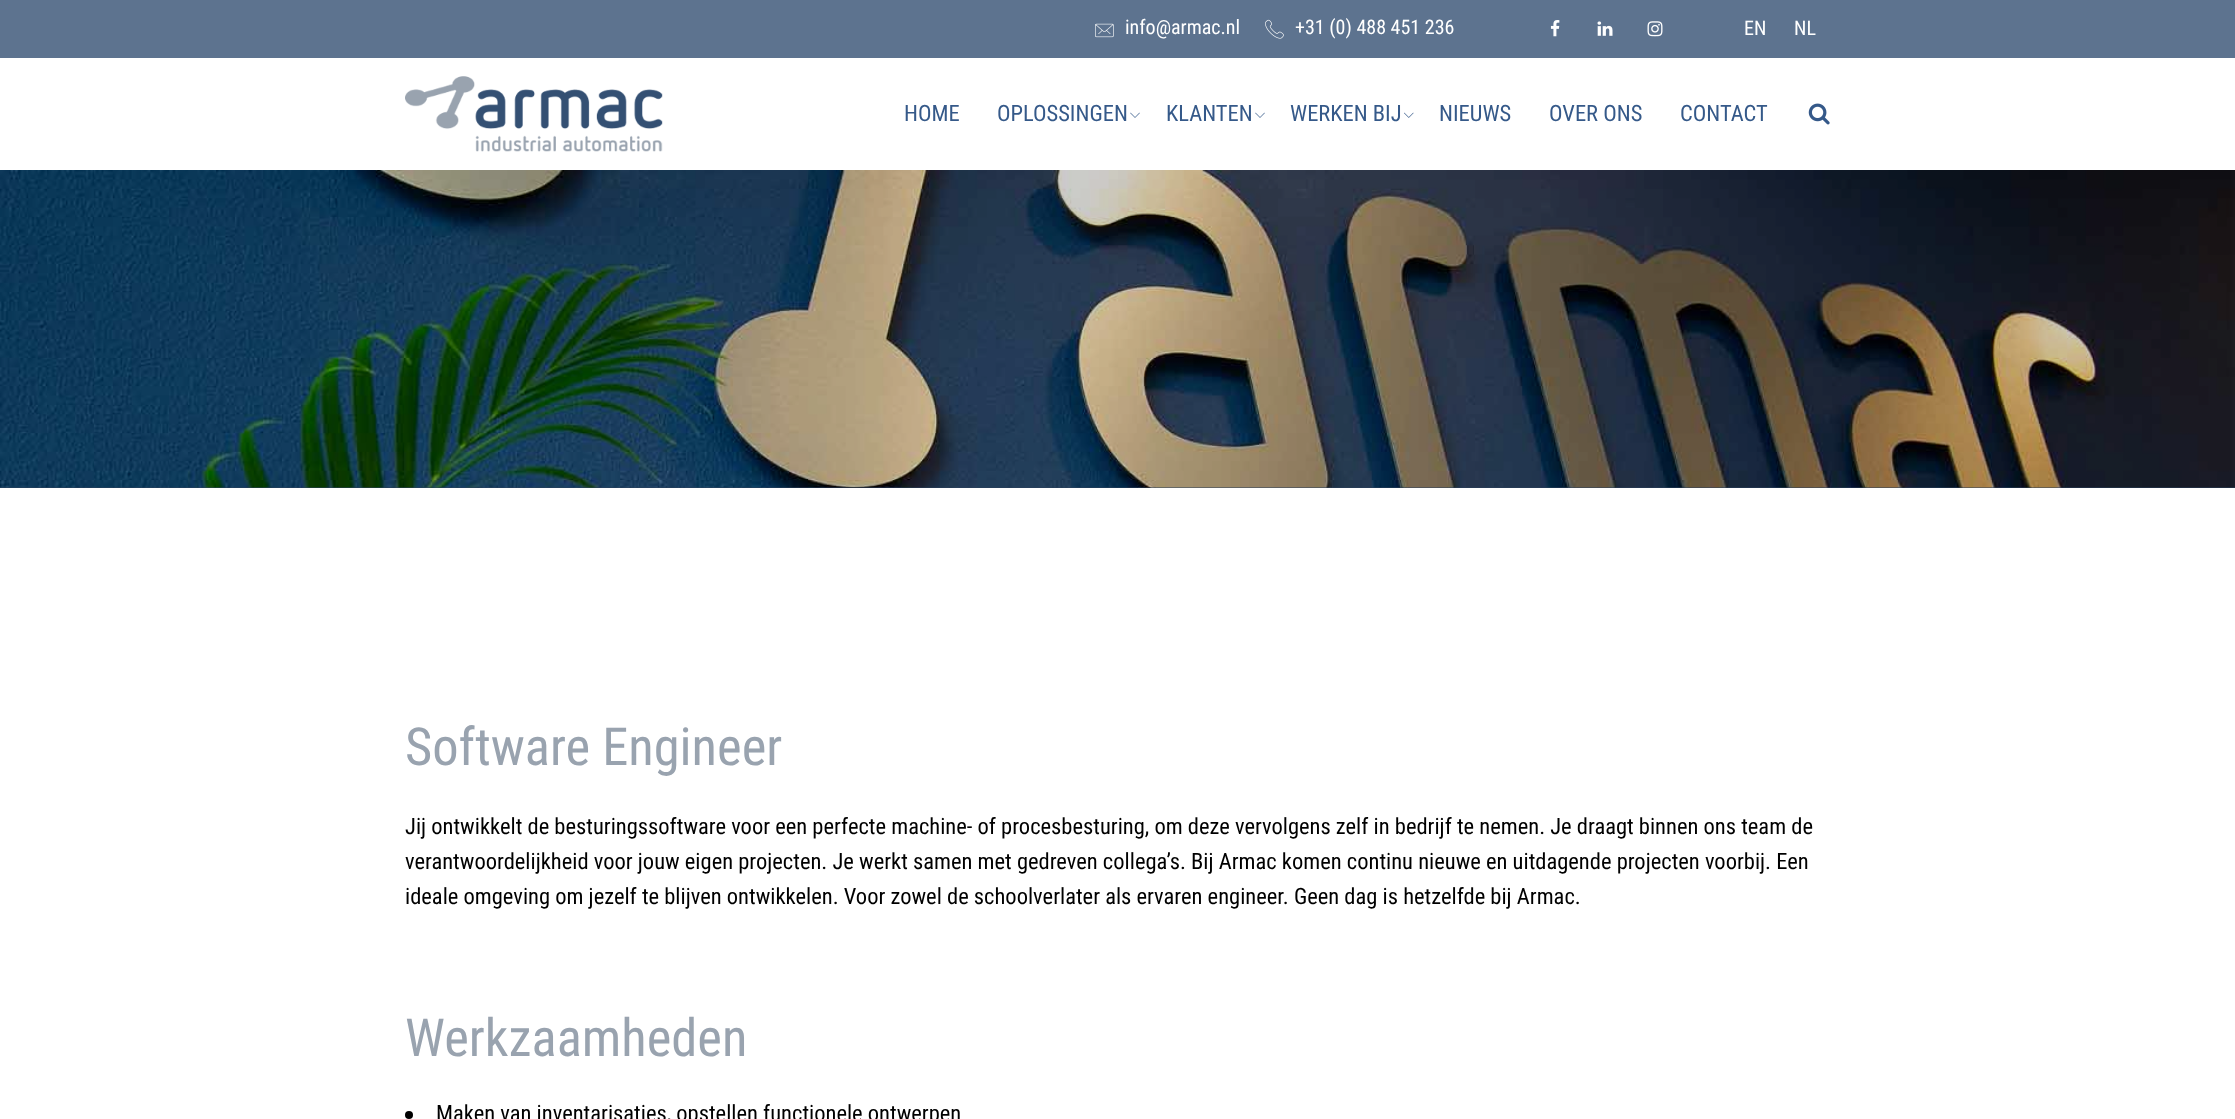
<svg xmlns="http://www.w3.org/2000/svg" width="2235" height="1119">
<rect width="100%" height="100%" fill="#fff"/>
<rect width="2235" height="58" fill="#5d738f"/>
<image x="1095" y="23" width="19" height="15" href="media/1.png"/>
<text x="1125" y="34" style="font-family:Roboto Condensed;font-size:20px;fill:#fff">info@armac.nl</text>
<image x="1265" y="19" width="19" height="20" href="media/2.png"/>
<text x="1295" y="34" style="font-family:Roboto Condensed;font-size:20px;fill:#fff">+31 (0) 488 451 236</text>
<image x="1550" y="20" width="10" height="17" href="media/3.png"/>
<image x="1597" y="21" width="16" height="15" href="media/4.png"/>
<image x="1647" y="21" width="16" height="16" href="media/5.png"/>
<text x="1744" y="35" style="font-family:Roboto Condensed;font-size:20px;fill:#fff">EN</text>
<text x="1794" y="35" style="font-family:Roboto Condensed;font-size:20px;fill:#fff">NL</text>
<image x="405" y="76" width="258" height="76" href="media/6.png"/>
<text x="904" y="121" style="font-family:Roboto Condensed;font-size:22.5px;fill:#355989">HOME</text>
<text x="997" y="121" style="font-family:Roboto Condensed;font-size:22.5px;fill:#355989">OPLOSSINGEN</text>
<image x="1130" y="112" width="10" height="6" href="media/7.png"/>
<text x="1166" y="121" style="font-family:Roboto Condensed;font-size:22.5px;fill:#355989">KLANTEN</text>
<image x="1255" y="112" width="10" height="6" href="media/7.png"/>
<text x="1290" y="121" style="font-family:Roboto Condensed;font-size:22.5px;fill:#355989">WERKEN BIJ</text>
<image x="1404" y="112" width="10" height="6" href="media/8.png"/>
<text x="1439" y="121" style="font-family:Roboto Condensed;font-size:22.5px;fill:#355989">NIEUWS</text>
<text x="1549" y="121" style="font-family:Roboto Condensed;font-size:22.5px;fill:#355989">OVER ONS</text>
<text x="1680" y="121" style="font-family:Roboto Condensed;font-size:22.5px;fill:#355989">CONTACT</text>
<image x="1808" y="103" width="22" height="22" href="media/9.png"/>
<rect y="487" width="2235" height="1" fill="#2a405c"/>
<image x="0" y="170" width="2235" height="318" href="media/10.png"/>
<text x="405" y="765" style="font-family:Roboto Condensed;font-size:52.5px;fill:#99a3af">Software Engineer</text>
<text x="405" y="834" style="font-family:Roboto Condensed;font-size:22.5px;fill:#000">Jij ontwikkelt de besturingssoftware voor een perfecte machine- of procesbesturing, om deze vervolgens zelf in bedrijf te nemen. Je draagt binnen ons team de</text>
<text x="405" y="869" style="font-family:Roboto Condensed;font-size:22.5px;fill:#000">verantwoordelijkheid voor jouw eigen projecten. Je werkt samen met gedreven collega’s. Bij Armac komen continu nieuwe en uitdagende projecten voorbij. Een</text>
<text x="405" y="904" style="font-family:Roboto Condensed;font-size:22.5px;fill:#000">ideale omgeving om jezelf te blijven ontwikkelen. Voor zowel de schoolverlater als ervaren engineer. Geen dag is hetzelfde bij Armac.</text>
<text x="405" y="1056" style="font-family:Roboto Condensed;font-size:52.5px;fill:#99a3af">Werkzaamheden</text>
<circle cx="409" cy="1115" r="4" fill="#000"/>
<text x="436" y="1121" style="font-family:Roboto Condensed;font-size:22.5px;fill:#000">Maken van inventarisaties, opstellen functionele ontwerpen</text>
</svg>
